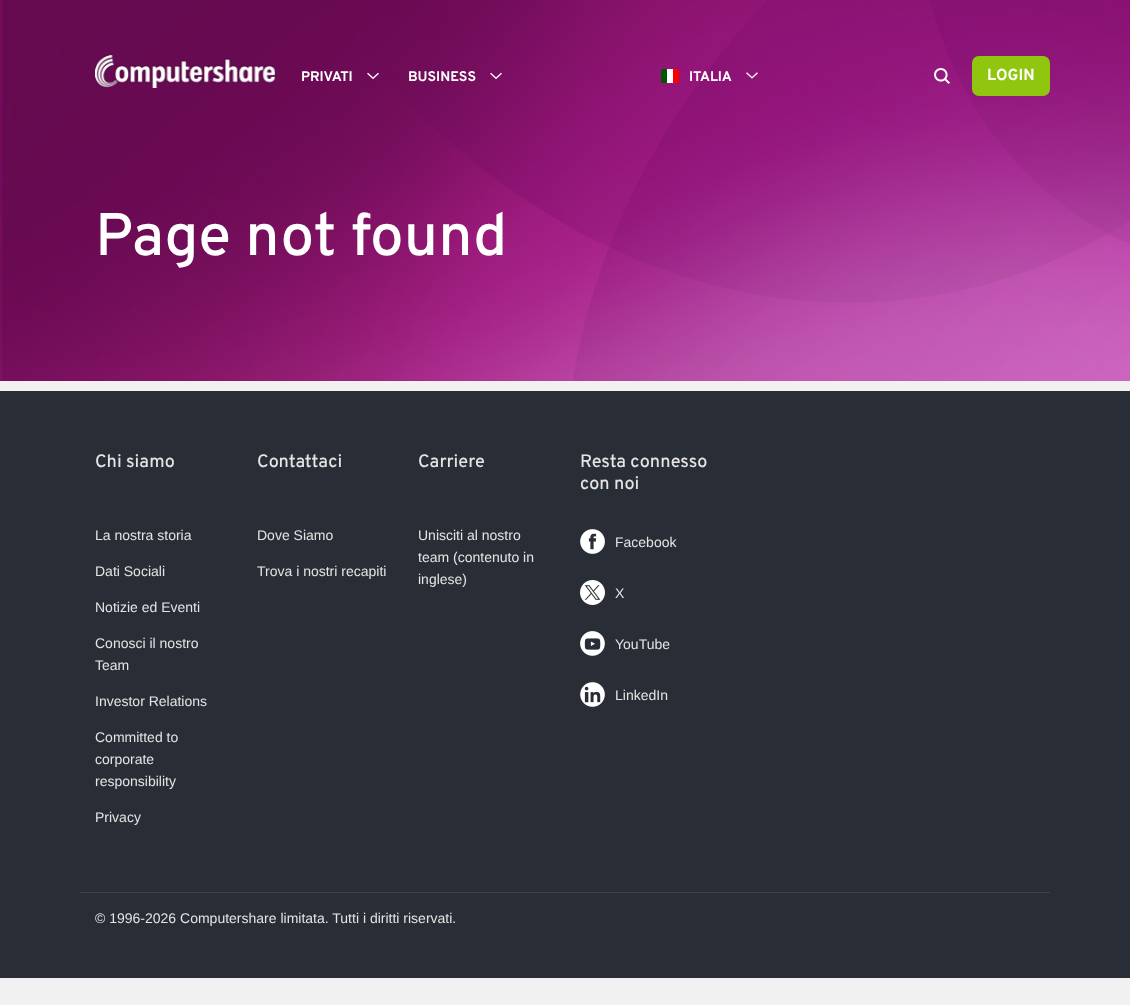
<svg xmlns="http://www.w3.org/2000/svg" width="1130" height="1005">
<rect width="100%" height="100%" fill="#f1f1f1"/>
<image x="0" y="0" width="1130" height="381" href="media/6.png"/>
<image x="95" y="55" width="180" height="33" href="media/1.png"/>
<text x="301" y="81" style="font-family:Overpass;font-size:14px;font-weight:bold;fill:#fff">PRIVATI</text>
<image x="367" y="72" width="12" height="8" href="media/2.png"/>
<text x="408" y="81" style="font-family:Overpass;font-size:14px;font-weight:bold;fill:#fff">BUSINESS</text>
<image x="490" y="72" width="12" height="8" href="media/3.png"/>
<rect x="667" y="69" width="6" height="14" fill="#fff"/>
<rect x="661" y="69" width="6" height="14" fill="#005700"/>
<rect x="673" y="69" width="6" height="14" fill="#fc0000"/>
<text x="689" y="81" style="font-family:Overpass;font-size:14px;font-weight:bold;fill:#fff">ITALIA</text>
<image x="746" y="72" width="12" height="7" href="media/4.png"/>
<image x="934" y="68" width="16" height="16" href="media/5.png"/>
<rect x="973" y="57" width="76" height="38" rx="6" fill="#91c60f" stroke="#91c60f" stroke-width="2"/>
<text x="987" y="80" style="font-family:Overpass;font-size:16px;font-weight:bold;fill:#fff">LOGIN</text>
<text x="95" y="255" style="font-family:Overpass;font-size:60px;font-weight:500;fill:#fff">Page not found</text>
<rect y="391" width="1130" height="587" fill="#292d36"/>
<text x="95" y="467" style="font-family:Overpass;font-size:18px;font-weight:500;fill:#e4e4e4">Chi siamo</text>
<text x="95" y="540" style="font-family:Liberation Sans;font-size:14px;fill:#e4e4e4">La nostra storia</text>
<text x="95" y="576" style="font-family:Liberation Sans;font-size:14px;fill:#e4e4e4">Dati Sociali</text>
<text x="95" y="612" style="font-family:Liberation Sans;font-size:14px;fill:#e4e4e4">Notizie ed Eventi</text>
<text x="95" y="648" style="font-family:Liberation Sans;font-size:14px;fill:#e4e4e4">Conosci il nostro</text>
<text x="95" y="670" style="font-family:Liberation Sans;font-size:14px;fill:#e4e4e4">Team</text>
<text x="95" y="706" style="font-family:Liberation Sans;font-size:14px;fill:#e4e4e4">Investor Relations</text>
<text x="95" y="742" style="font-family:Liberation Sans;font-size:14px;fill:#e4e4e4">Committed to</text>
<text x="95" y="764" style="font-family:Liberation Sans;font-size:14px;fill:#e4e4e4">corporate</text>
<text x="95" y="786" style="font-family:Liberation Sans;font-size:14px;fill:#e4e4e4">responsibility</text>
<text x="95" y="822" style="font-family:Liberation Sans;font-size:14px;fill:#e4e4e4">Privacy</text>
<text x="257" y="467" style="font-family:Overpass;font-size:18px;font-weight:500;fill:#e4e4e4">Contattaci</text>
<text x="257" y="540" style="font-family:Liberation Sans;font-size:14px;fill:#e4e4e4">Dove Siamo</text>
<text x="257" y="576" style="font-family:Liberation Sans;font-size:14px;fill:#e4e4e4">Trova i nostri recapiti</text>
<text x="418" y="467" style="font-family:Overpass;font-size:18px;font-weight:500;fill:#e4e4e4">Carriere</text>
<text x="418" y="540" style="font-family:Liberation Sans;font-size:14px;fill:#e4e4e4">Unisciti al nostro</text>
<text x="418" y="562" style="font-family:Liberation Sans;font-size:14px;fill:#e4e4e4">team (contenuto in</text>
<text x="418" y="584" style="font-family:Liberation Sans;font-size:14px;fill:#e4e4e4">inglese)</text>
<text x="580" y="467" style="font-family:Overpass;font-size:18px;font-weight:500;fill:#e4e4e4">Resta connesso</text>
<text x="580" y="489" style="font-family:Overpass;font-size:18px;font-weight:500;fill:#e4e4e4">con noi</text>
<image x="580" y="529" width="25" height="25" href="media/7.png"/>
<text x="615" y="547" style="font-family:Liberation Sans;font-size:14px;fill:#e4e4e4">Facebook</text>
<image x="580" y="580" width="25" height="25" href="media/8.png"/>
<text x="615" y="598" style="font-family:Liberation Sans;font-size:14px;fill:#e4e4e4">X</text>
<image x="580" y="631" width="25" height="25" href="media/9.png"/>
<text x="615" y="649" style="font-family:Liberation Sans;font-size:14px;fill:#e4e4e4">YouTube</text>
<image x="580" y="682" width="25" height="25" href="media/10.png"/>
<text x="615" y="700" style="font-family:Liberation Sans;font-size:14px;fill:#e4e4e4">LinkedIn</text>
<rect x="80" y="892" width="970" height="1" fill="#3f424a"/>
<text x="95" y="923" style="font-family:Liberation Sans;font-size:14px;fill:#e4e4e4">© 1996-2026 Computershare limitata. Tutti i diritti riservati.</text>
</svg>
